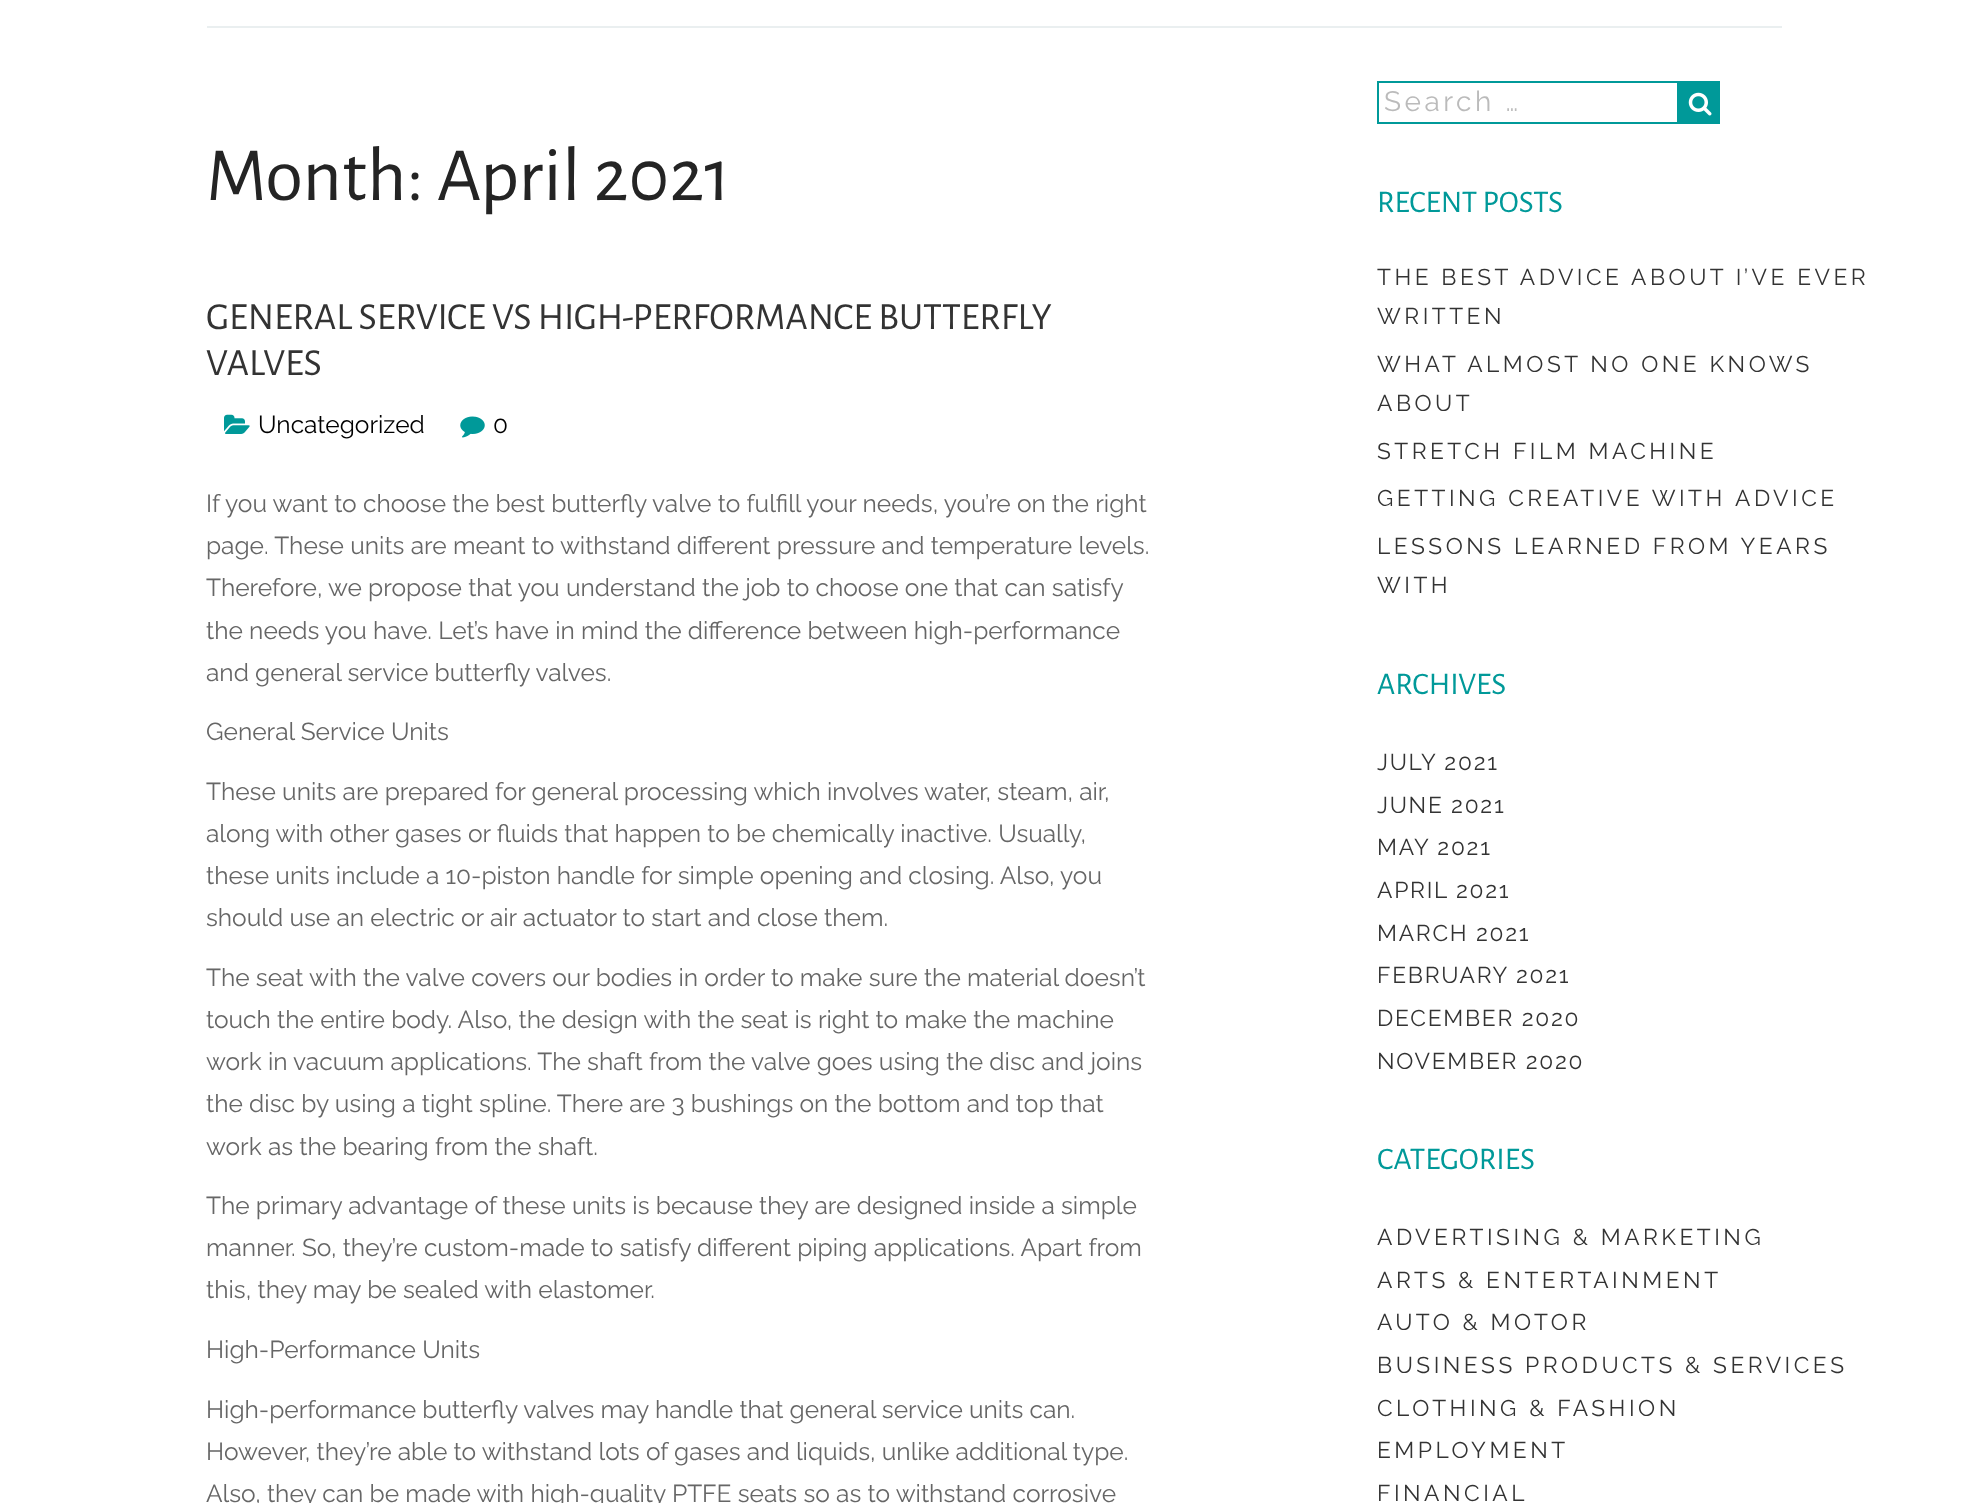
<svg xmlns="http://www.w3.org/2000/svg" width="1986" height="1503">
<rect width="100%" height="100%" fill="#fff"/>
<rect x="207" y="26" width="1575" height="2" fill="#eaeff0"/>
<text x="206" y="200" style="font-family:Alegreya Sans;font-size:77px;fill:#242424">Month: April 2021</text>
<text x="206" y="329" style="font-family:Alegreya Sans;font-size:38.5px;fill:#333">GENERAL SERVICE VS HIGH-PERFORMANCE BUTTERFLY</text>
<text x="206" y="375" style="font-family:Alegreya Sans;font-size:38.5px;fill:#333">VALVES</text>
<image x="224" y="414" width="26" height="20" href="media/1.png"/>
<text x="258" y="433" style="font-family:Raleway;font-size:24.5px;fill:#000">Uncategorized</text>
<image x="460" y="416" width="25" height="22" href="media/2.png"/>
<text x="493" y="433" style="font-family:Raleway;font-size:24.5px;fill:#000">0</text>
<text x="206" y="512" style="font-family:Raleway;font-size:24.5px;fill:#666">If you want to choose the best butterfly valve to fulfill your needs, you’re on the right</text>
<text x="206" y="554" style="font-family:Raleway;font-size:24.5px;fill:#666">page. These units are meant to withstand different pressure and temperature levels.</text>
<text x="206" y="596" style="font-family:Raleway;font-size:24.5px;fill:#666">Therefore, we propose that you understand the job to choose one that can satisfy</text>
<text x="206" y="639" style="font-family:Raleway;font-size:24.5px;fill:#666">the needs you have. Let’s have in mind the difference between high-performance</text>
<text x="206" y="681" style="font-family:Raleway;font-size:24.5px;fill:#666">and general service butterfly valves.</text>
<text x="206" y="740" style="font-family:Raleway;font-size:24.5px;fill:#666">General Service Units</text>
<text x="206" y="800" style="font-family:Raleway;font-size:24.5px;fill:#666">These units are prepared for general processing which involves water, steam, air,</text>
<text x="206" y="842" style="font-family:Raleway;font-size:24.5px;fill:#666">along with other gases or fluids that happen to be chemically inactive. Usually,</text>
<text x="206" y="884" style="font-family:Raleway;font-size:24.5px;fill:#666">these units include a 10-piston handle for simple opening and closing. Also, you</text>
<text x="206" y="926" style="font-family:Raleway;font-size:24.5px;fill:#666">should use an electric or air actuator to start and close them.</text>
<text x="206" y="986" style="font-family:Raleway;font-size:24.5px;fill:#666">The seat with the valve covers our bodies in order to make sure the material doesn’t</text>
<text x="206" y="1028" style="font-family:Raleway;font-size:24.5px;fill:#666">touch the entire body. Also, the design with the seat is right to make the machine</text>
<text x="206" y="1070" style="font-family:Raleway;font-size:24.5px;fill:#666">work in vacuum applications. The shaft from the valve goes using the disc and joins</text>
<text x="206" y="1112" style="font-family:Raleway;font-size:24.5px;fill:#666">the disc by using a tight spline. There are 3 bushings on the bottom and top that</text>
<text x="206" y="1155" style="font-family:Raleway;font-size:24.5px;fill:#666">work as the bearing from the shaft.</text>
<text x="206" y="1214" style="font-family:Raleway;font-size:24.5px;fill:#666">The primary advantage of these units is because they are designed inside a simple</text>
<text x="206" y="1256" style="font-family:Raleway;font-size:24.5px;fill:#666">manner. So, they’re custom-made to satisfy different piping applications. Apart from</text>
<text x="206" y="1298" style="font-family:Raleway;font-size:24.5px;fill:#666">this, they may be sealed with elastomer.</text>
<text x="206" y="1358" style="font-family:Raleway;font-size:24.5px;fill:#666">High-Performance Units</text>
<text x="206" y="1418" style="font-family:Raleway;font-size:24.5px;fill:#666">High-performance butterfly valves may handle that general service units can.</text>
<text x="206" y="1460" style="font-family:Raleway;font-size:24.5px;fill:#666">However, they’re able to withstand lots of gases and liquids, unlike additional type.</text>
<text x="206" y="1502" style="font-family:Raleway;font-size:24.5px;fill:#666">Also, they can be made with high-quality PTFE seats so as to withstand corrosive</text>
<rect x="1378" y="82" width="303" height="41" fill="none" stroke="#099" stroke-width="2"/>
<text x="1384" y="111" style="font-family:Raleway;font-size:28px;letter-spacing:3.5px;fill:#bbb">Search …</text>
<rect x="1677" y="81" width="43" height="43" fill="#099"/>
<image x="1688" y="92" width="24" height="24" href="media/3.png"/>
<text x="1377" y="212" style="font-family:Alegreya Sans;font-size:31.5px;fill:#099">RECENT POSTS</text>
<text x="1377" y="285" style="font-family:Raleway;font-size:22.75px;letter-spacing:3.5px;fill:#333">THE BEST ADVICE ABOUT I’VE EVER</text>
<text x="1377" y="324" style="font-family:Raleway;font-size:22.75px;letter-spacing:3.5px;fill:#333">WRITTEN</text>
<text x="1377" y="372" style="font-family:Raleway;font-size:22.75px;letter-spacing:3.5px;fill:#333">WHAT ALMOST NO ONE KNOWS</text>
<text x="1377" y="411" style="font-family:Raleway;font-size:22.75px;letter-spacing:3.5px;fill:#333">ABOUT</text>
<text x="1377" y="459" style="font-family:Raleway;font-size:22.75px;letter-spacing:3.5px;fill:#333">STRETCH FILM MACHINE</text>
<text x="1377" y="506" style="font-family:Raleway;font-size:22.75px;letter-spacing:3.5px;fill:#333">GETTING CREATIVE WITH</text>
<text x="1735" y="506" style="font-family:Raleway;font-size:22.75px;letter-spacing:3.5px;fill:#333">ADVICE</text>
<text x="1377" y="554" style="font-family:Raleway;font-size:22.75px;letter-spacing:3.5px;fill:#333">LESSONS LEARNED FROM YEARS</text>
<text x="1377" y="593" style="font-family:Raleway;font-size:22.75px;letter-spacing:3.5px;fill:#333">WITH</text>
<text x="1377" y="694" style="font-family:Alegreya Sans;font-size:31.5px;fill:#099">ARCHIVES</text>
<text x="1377" y="770" style="font-family:Raleway;font-size:22.75px;letter-spacing:1.75px;fill:#333">JULY 2021</text>
<text x="1377" y="813" style="font-family:Raleway;font-size:22.75px;letter-spacing:1.75px;fill:#333">JUNE 2021</text>
<text x="1377" y="855" style="font-family:Raleway;font-size:22.75px;letter-spacing:1.75px;fill:#333">MAY 2021</text>
<text x="1377" y="898" style="font-family:Raleway;font-size:22.75px;letter-spacing:1.75px;fill:#333">APRIL 2021</text>
<text x="1377" y="941" style="font-family:Raleway;font-size:22.75px;letter-spacing:1.75px;fill:#333">MARCH 2021</text>
<text x="1377" y="983" style="font-family:Raleway;font-size:22.75px;letter-spacing:1.75px;fill:#333">FEBRUARY 2021</text>
<text x="1377" y="1026" style="font-family:Raleway;font-size:22.75px;letter-spacing:1.75px;fill:#333">DECEMBER 2020</text>
<text x="1377" y="1069" style="font-family:Raleway;font-size:22.75px;letter-spacing:1.75px;fill:#333">NOVEMBER 2020</text>
<text x="1377" y="1169" style="font-family:Alegreya Sans;font-size:31.5px;fill:#099">CATEGORIES</text>
<text x="1377" y="1245" style="font-family:Raleway;font-size:22.75px;letter-spacing:3.5px;fill:#333">ADVERTISING &amp; MARKETING</text>
<text x="1377" y="1288" style="font-family:Raleway;font-size:22.75px;letter-spacing:3.5px;fill:#333">ARTS &amp; ENTERTAINMENT</text>
<text x="1377" y="1330" style="font-family:Raleway;font-size:22.75px;letter-spacing:3.5px;fill:#333">AUTO &amp; MOTOR</text>
<text x="1377" y="1373" style="font-family:Raleway;font-size:22.75px;letter-spacing:3.5px;fill:#333">BUSINESS PRODUCTS &amp; SERVICES</text>
<text x="1377" y="1416" style="font-family:Raleway;font-size:22.75px;letter-spacing:3.5px;fill:#333">CLOTHING &amp; FASHION</text>
<text x="1377" y="1458" style="font-family:Raleway;font-size:22.75px;letter-spacing:3.5px;fill:#333">EMPLOYMENT</text>
<text x="1377" y="1501" style="font-family:Raleway;font-size:22.75px;letter-spacing:3.5px;fill:#333">FINANCIAL</text>
</svg>
